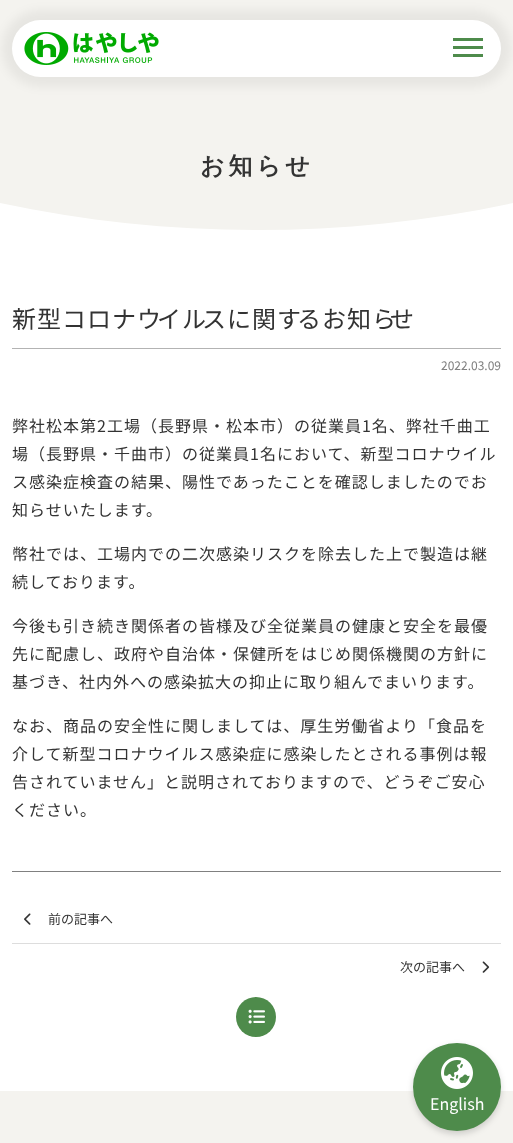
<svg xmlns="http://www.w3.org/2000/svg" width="513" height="1143">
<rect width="100%" height="100%" fill="#fff"/>
<path d="M0 0h513v203c-168 36-345 36-513 0z" fill="#f4f3ef"/>
<rect x="2" y="10" width="509" height="77" rx="38.5" fill="#0000000d" filter="blur(5px)"/>
<rect x="12" y="20" width="489" height="57" rx="28.5" fill="#fff"/>
<image x="24" y="32" width="135" height="33" href="media/1.png"/>
<rect x="453" y="38" width="30" height="3" fill="#4e8b4b"/>
<rect x="453" y="46" width="30" height="3" fill="#4e8b4b"/>
<rect x="453" y="54" width="30" height="3" fill="#4e8b4b"/>
<text x="200" y="174" style="font-family:WenQuanYi Zen Hei;font-size:24px;font-weight:bold;letter-spacing:4px;fill:#333">お知らせ</text>
<rect x="12" y="348" width="489" height="1" fill="#b3b3b3"/>
<text x="12" y="328" style="font-family:Noto Sans JP;font-size:24px;letter-spacing:1px;fill:#333">新型コロナウ</text>
<text x="157" y="328" style="font-family:Noto Sans JP;font-size:24px;letter-spacing:1px;fill:#333">イル</text>
<text x="202" y="328" style="font-family:Noto Sans JP;font-size:24px;letter-spacing:1px;fill:#333">スに関す</text>
<text x="297" y="328" style="font-family:Noto Sans JP;font-size:24px;letter-spacing:1px;fill:#333">るお知ら</text>
<text x="390" y="328" style="font-family:Noto Sans JP;font-size:24px;letter-spacing:1px;fill:#333">せ</text>
<text x="441" y="370" style="font-family:Noto Sans JP;font-size:12px;fill:#808080">2022.03.09</text>
<text x="12" y="432" style="font-family:Noto Sans JP;font-size:16px;letter-spacing:1px;fill:#333">弊社松本第2工場（長野県・松本市）の従業員1名、弊社千曲工</text>
<text x="12" y="460" style="font-family:Noto Sans JP;font-size:16px;letter-spacing:1px;fill:#333">場（長野県・千曲市）の従業員1名において、新型コロナウイル</text>
<text x="12" y="488" style="font-family:Noto Sans JP;font-size:16px;letter-spacing:1px;fill:#333">ス感染症検査の結果、陽性であったことを確認しましたのでお</text>
<text x="12" y="516" style="font-family:Noto Sans JP;font-size:16px;letter-spacing:1px;fill:#333">知らせいたします。</text>
<text x="12" y="560" style="font-family:Noto Sans JP;font-size:16px;letter-spacing:1px;fill:#333">幣社では、工場内での二次感染リスクを除去した上で製造は継</text>
<text x="12" y="588" style="font-family:Noto Sans JP;font-size:16px;letter-spacing:1px;fill:#333">続しております。</text>
<text x="12" y="632" style="font-family:Noto Sans JP;font-size:16px;letter-spacing:1px;fill:#333">今後も引き続き関係者の皆様及び全従業員の健康と安全を最優</text>
<text x="12" y="660" style="font-family:Noto Sans JP;font-size:16px;letter-spacing:1px;fill:#333">先に配慮し、政府や自治体・保健所をはじめ関係機関の方針に</text>
<text x="12" y="688" style="font-family:Noto Sans JP;font-size:16px;letter-spacing:1px;fill:#333">基づき、社内外への感染拡大の抑止に取り組んでまいります。</text>
<text x="12" y="732" style="font-family:Noto Sans JP;font-size:16px;letter-spacing:1px;fill:#333">なお、商品の安全性に関しましては、厚生労働省より「食品を</text>
<text x="12" y="760" style="font-family:Noto Sans JP;font-size:16px;letter-spacing:1px;fill:#333">介して新型コロナウイルス感染症に感染したとされる事例は報</text>
<text x="12" y="788" style="font-family:Noto Sans JP;font-size:16px;letter-spacing:1px;fill:#333">告されていません」と説明されておりますので、どうぞご安心</text>
<text x="12" y="816" style="font-family:Noto Sans JP;font-size:16px;letter-spacing:1px;fill:#333">ください。</text>
<rect x="12" y="871" width="489" height="1" fill="#808080"/>
<rect x="12" y="943" width="489" height="1" fill="#ddd"/>
<image x="24" y="913" width="7" height="12" href="media/2.png"/>
<text x="48" y="924" style="font-family:Noto Sans JP;font-size:13px;fill:#333">前の記事へ</text>
<text x="400" y="972" style="font-family:Noto Sans JP;font-size:13px;fill:#333">次の記事へ</text>
<image x="482" y="961" width="8" height="12" href="media/3.png"/>
<circle cx="256" cy="1017" r="20" fill="#4e8b4b"/>
<image x="248" y="1009" width="17" height="15" href="media/4.png"/>
<rect y="1091" width="513" height="52" fill="#f4f3ef"/>
<rect x="413" y="1046" width="88" height="88" rx="44" fill="#00000029" filter="blur(3px)"/>
<circle cx="457" cy="1087" r="44" fill="#4e8b4b"/>
<image x="441" y="1057" width="32" height="32" href="media/5.png"/>
<text x="430" y="1110" style="font-family:Noto Sans JP;font-size:16px;fill:#fff">English</text>
</svg>
